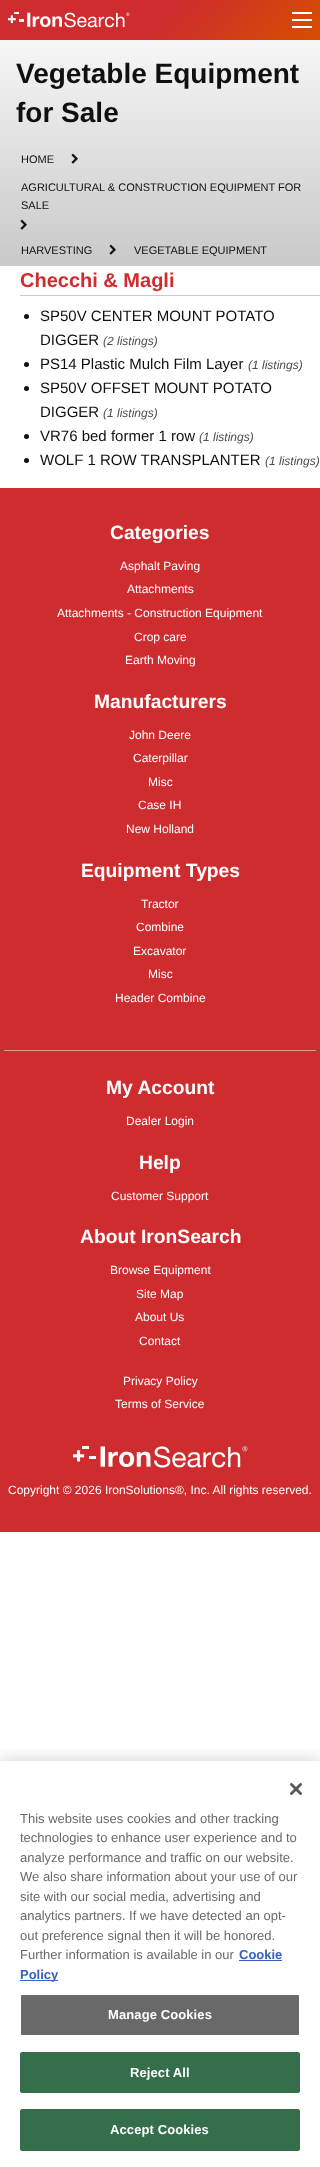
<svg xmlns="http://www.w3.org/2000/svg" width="320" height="2167">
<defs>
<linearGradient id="g1" gradientUnits="userSpaceOnUse" x1="70" y1="-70" x2="250" y2="110"><stop offset="0.5" stop-color="#ce2c2f"/><stop offset="1" stop-color="#d64f00"/></linearGradient>
<linearGradient id="g2" gradientUnits="userSpaceOnUse" x1="160" y1="40" x2="160" y2="488"><stop offset="0" stop-color="#f6f6f6"/><stop offset="1" stop-color="#9c9c9c"/></linearGradient>
<clipPath id="clip1"><rect x="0" y="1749" width="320" height="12"/></clipPath>
</defs>
<rect width="100%" height="100%" fill="#fff"/>
<rect width="320" height="40" fill="url(#g1)"/>
<image x="8" y="12" width="122" height="16" href="media/1.png"/>
<rect x="292" y="26" width="20" height="2" fill="#fff"/>
<rect x="292" y="19" width="20" height="2" fill="#fff"/>
<rect x="292" y="12" width="20" height="2" fill="#fff"/>
<rect y="40" width="320" height="226" fill="url(#g2)"/>
<text x="16" y="83" style="font-family:Liberation Sans;font-size:28px;font-weight:bold;fill:#101010">Vegetable Equipment</text>
<text x="16" y="122" style="font-family:Liberation Sans;font-size:28px;font-weight:bold;fill:#101010">for Sale</text>
<text x="21" y="163" style="font-family:Liberation Sans;font-size:11px;fill:#101010">HOME</text>
<image x="71" y="153" width="7" height="11" href="media/2.png"/>
<text x="21" y="191" style="font-family:Liberation Sans;font-size:11px;fill:#101010">AGRICULTURAL &amp; CONSTRUCTION EQUIPMENT FOR</text>
<text x="21" y="209" style="font-family:Liberation Sans;font-size:11px;fill:#101010">SALE</text>
<image x="20" y="219" width="7" height="11" href="media/3.png"/>
<text x="21" y="254" style="font-family:Liberation Sans;font-size:11px;fill:#101010">HARVESTING</text>
<image x="109" y="244" width="7" height="11" href="media/4.png"/>
<text x="134" y="254" style="font-family:Liberation Sans;font-size:11px;fill:#101010">VEGETABLE EQUIPMENT</text>
<rect x="20" y="295" width="300" height="1" fill="#cacaca"/>
<text x="20" y="287" style="font-family:Liberation Sans;font-size:20px;font-weight:bold;fill:#ce2c2f">Checchi &amp; Magli</text>
<circle cx="26.5" cy="316.5" r="2.5" fill="#101010"/>
<text x="40" y="321" style="font-family:Liberation Sans;font-size:15px;fill:#101010">SP50V CENTER MOUNT POTATO</text>
<text x="40" y="345" style="font-family:Liberation Sans;font-size:15px;fill:#101010">DIGGER</text>
<text x="103" y="345" style="font-family:Liberation Sans;font-size:12px;font-style:italic;fill:#4c4c4c">(2 listings)</text>
<circle cx="26.5" cy="364.5" r="2.5" fill="#101010"/>
<text x="40" y="369" style="font-family:Liberation Sans;font-size:15px;fill:#101010">PS14 Plastic Mulch Film Layer</text>
<text x="248" y="369" style="font-family:Liberation Sans;font-size:12px;font-style:italic;fill:#4c4c4c">(1 listings)</text>
<circle cx="26.5" cy="388.5" r="2.5" fill="#101010"/>
<text x="40" y="393" style="font-family:Liberation Sans;font-size:15px;fill:#101010">SP50V OFFSET MOUNT POTATO</text>
<text x="40" y="417" style="font-family:Liberation Sans;font-size:15px;fill:#101010">DIGGER</text>
<text x="103" y="417" style="font-family:Liberation Sans;font-size:12px;font-style:italic;fill:#4c4c4c">(1 listings)</text>
<circle cx="26.5" cy="436.5" r="2.5" fill="#101010"/>
<text x="40" y="441" style="font-family:Liberation Sans;font-size:15px;fill:#101010">VR76 bed former 1 row</text>
<text x="199" y="441" style="font-family:Liberation Sans;font-size:12px;font-style:italic;fill:#4c4c4c">(1 listings)</text>
<circle cx="26.5" cy="460.5" r="2.5" fill="#101010"/>
<text x="40" y="465" style="font-family:Liberation Sans;font-size:15px;fill:#101010">WOLF 1 ROW TRANSPLANTER</text>
<text x="265" y="465" style="font-family:Liberation Sans;font-size:12px;font-style:italic;fill:#4c4c4c">(1 listings)</text>
<rect y="488" width="320" height="1044" fill="#ce2c2f"/>
<text x="110" y="539" style="font-family:Liberation Sans;font-size:19.25px;font-weight:bold;fill:#fff">Categories</text>
<text x="120" y="570" style="font-family:Liberation Sans;font-size:12px;fill:#fff">Asphalt Paving</text>
<text x="127" y="593" style="font-family:Liberation Sans;font-size:12px;fill:#fff">Attachments</text>
<text x="57" y="617" style="font-family:Liberation Sans;font-size:12px;fill:#fff">Attachments - Construction Equipment</text>
<text x="134" y="641" style="font-family:Liberation Sans;font-size:12px;fill:#fff">Crop care</text>
<text x="125" y="664" style="font-family:Liberation Sans;font-size:12px;fill:#fff">Earth Moving</text>
<text x="94" y="708" style="font-family:Liberation Sans;font-size:19.25px;font-weight:bold;fill:#fff">Manufacturers</text>
<text x="129" y="739" style="font-family:Liberation Sans;font-size:12px;fill:#fff">John Deere</text>
<text x="133" y="762" style="font-family:Liberation Sans;font-size:12px;fill:#fff">Caterpillar</text>
<text x="148" y="786" style="font-family:Liberation Sans;font-size:12px;fill:#fff">Misc</text>
<text x="138" y="809" style="font-family:Liberation Sans;font-size:12px;fill:#fff">Case IH</text>
<text x="126" y="833" style="font-family:Liberation Sans;font-size:12px;fill:#fff">New Holland</text>
<text x="81" y="877" style="font-family:Liberation Sans;font-size:19.25px;font-weight:bold;fill:#fff">Equipment Types</text>
<text x="141" y="908" style="font-family:Liberation Sans;font-size:12px;fill:#fff">Tractor</text>
<text x="136" y="931" style="font-family:Liberation Sans;font-size:12px;fill:#fff">Combine</text>
<text x="133" y="955" style="font-family:Liberation Sans;font-size:12px;fill:#fff">Excavator</text>
<text x="148" y="978" style="font-family:Liberation Sans;font-size:12px;fill:#fff">Misc</text>
<text x="115" y="1002" style="font-family:Liberation Sans;font-size:12px;fill:#fff">Header Combine</text>
<rect x="4" y="1050" width="312" height="1" fill="#e79697"/>
<text x="106" y="1094" style="font-family:Liberation Sans;font-size:19.25px;font-weight:bold;fill:#fff">My Account</text>
<text x="126" y="1125" style="font-family:Liberation Sans;font-size:12px;fill:#fff">Dealer Login</text>
<text x="139" y="1169" style="font-family:Liberation Sans;font-size:19.25px;font-weight:bold;fill:#fff">Help</text>
<text x="111" y="1200" style="font-family:Liberation Sans;font-size:12px;fill:#fff">Customer Support</text>
<text x="80" y="1243" style="font-family:Liberation Sans;font-size:19.25px;font-weight:bold;fill:#fff">About IronSearch</text>
<text x="110" y="1274" style="font-family:Liberation Sans;font-size:12px;fill:#fff">Browse Equipment</text>
<text x="136" y="1298" style="font-family:Liberation Sans;font-size:12px;fill:#fff">Site Map</text>
<text x="135" y="1321" style="font-family:Liberation Sans;font-size:12px;fill:#fff">About Us</text>
<text x="139" y="1345" style="font-family:Liberation Sans;font-size:12px;fill:#fff">Contact</text>
<text x="123" y="1385" style="font-family:Liberation Sans;font-size:12px;fill:#fff">Privacy Policy</text>
<text x="115" y="1408" style="font-family:Liberation Sans;font-size:12px;fill:#fff">Terms of Service</text>
<image x="73" y="1446" width="175" height="22" href="media/5.png"/>
<text x="8" y="1494" style="font-family:Liberation Sans;font-size:12px;fill:#fff">Copyright © 2026 IronSolutions®, Inc. All rights reserved.</text>
<g clip-path="url(#clip1)">
<rect y="1761" width="320" height="406" fill="#00000033" filter="blur(9px)"/>
</g>
<image x="290" y="1783" width="12" height="12" href="media/6.png"/>
<text x="20" y="1823" style="font-family:Liberation Sans;font-size:13px;fill:#696969">This website uses cookies and other tracking</text>
<text x="20" y="1842" style="font-family:Liberation Sans;font-size:13px;fill:#696969">technologies to enhance user experience and to</text>
<text x="20" y="1862" style="font-family:Liberation Sans;font-size:13px;fill:#696969">analyze performance and traffic on our website.</text>
<text x="20" y="1881" style="font-family:Liberation Sans;font-size:13px;fill:#696969">We also share information about your use of our</text>
<text x="20" y="1901" style="font-family:Liberation Sans;font-size:13px;fill:#696969">site with our social media, advertising and</text>
<text x="20" y="1920" style="font-family:Liberation Sans;font-size:13px;fill:#696969">analytics partners. If we have detected an opt-</text>
<text x="20" y="1940" style="font-family:Liberation Sans;font-size:13px;fill:#696969">out preference signal then it will be honored.</text>
<text x="20" y="1959" style="font-family:Liberation Sans;font-size:13px;fill:#696969">Further information is available in our</text>
<text x="239" y="1959" style="font-family:Liberation Sans;font-size:13px;font-weight:bold;fill:#3860be">Cookie</text>
<rect x="239" y="1960" width="43" height="1" fill="#3860be"/>
<rect x="20" y="1980" width="38" height="1" fill="#3860be"/>
<text x="20" y="1979" style="font-family:Liberation Sans;font-size:13px;font-weight:bold;fill:#3860be">Policy</text>
<rect x="20.5" y="1994.5" width="279" height="41" rx="1.5" fill="#696969" stroke="#fff"/>
<text x="108" y="2019" style="font-family:Liberation Sans;font-size:13px;font-weight:bold;letter-spacing:0.1px;fill:#fff">Manage Cookies</text>
<rect x="20.5" y="2052.5" width="279" height="40" rx="1.5" fill="#346e4a" stroke="#346e4a"/>
<text x="130" y="2077" style="font-family:Liberation Sans;font-size:13px;font-weight:bold;letter-spacing:0.1px;fill:#fff">Reject All</text>
<rect x="20.5" y="2109.5" width="279" height="41" rx="1.5" fill="#346e4a" stroke="#346e4a"/>
<text x="110" y="2134" style="font-family:Liberation Sans;font-size:13px;font-weight:bold;letter-spacing:0.1px;fill:#fff">Accept Cookies</text>
</svg>
